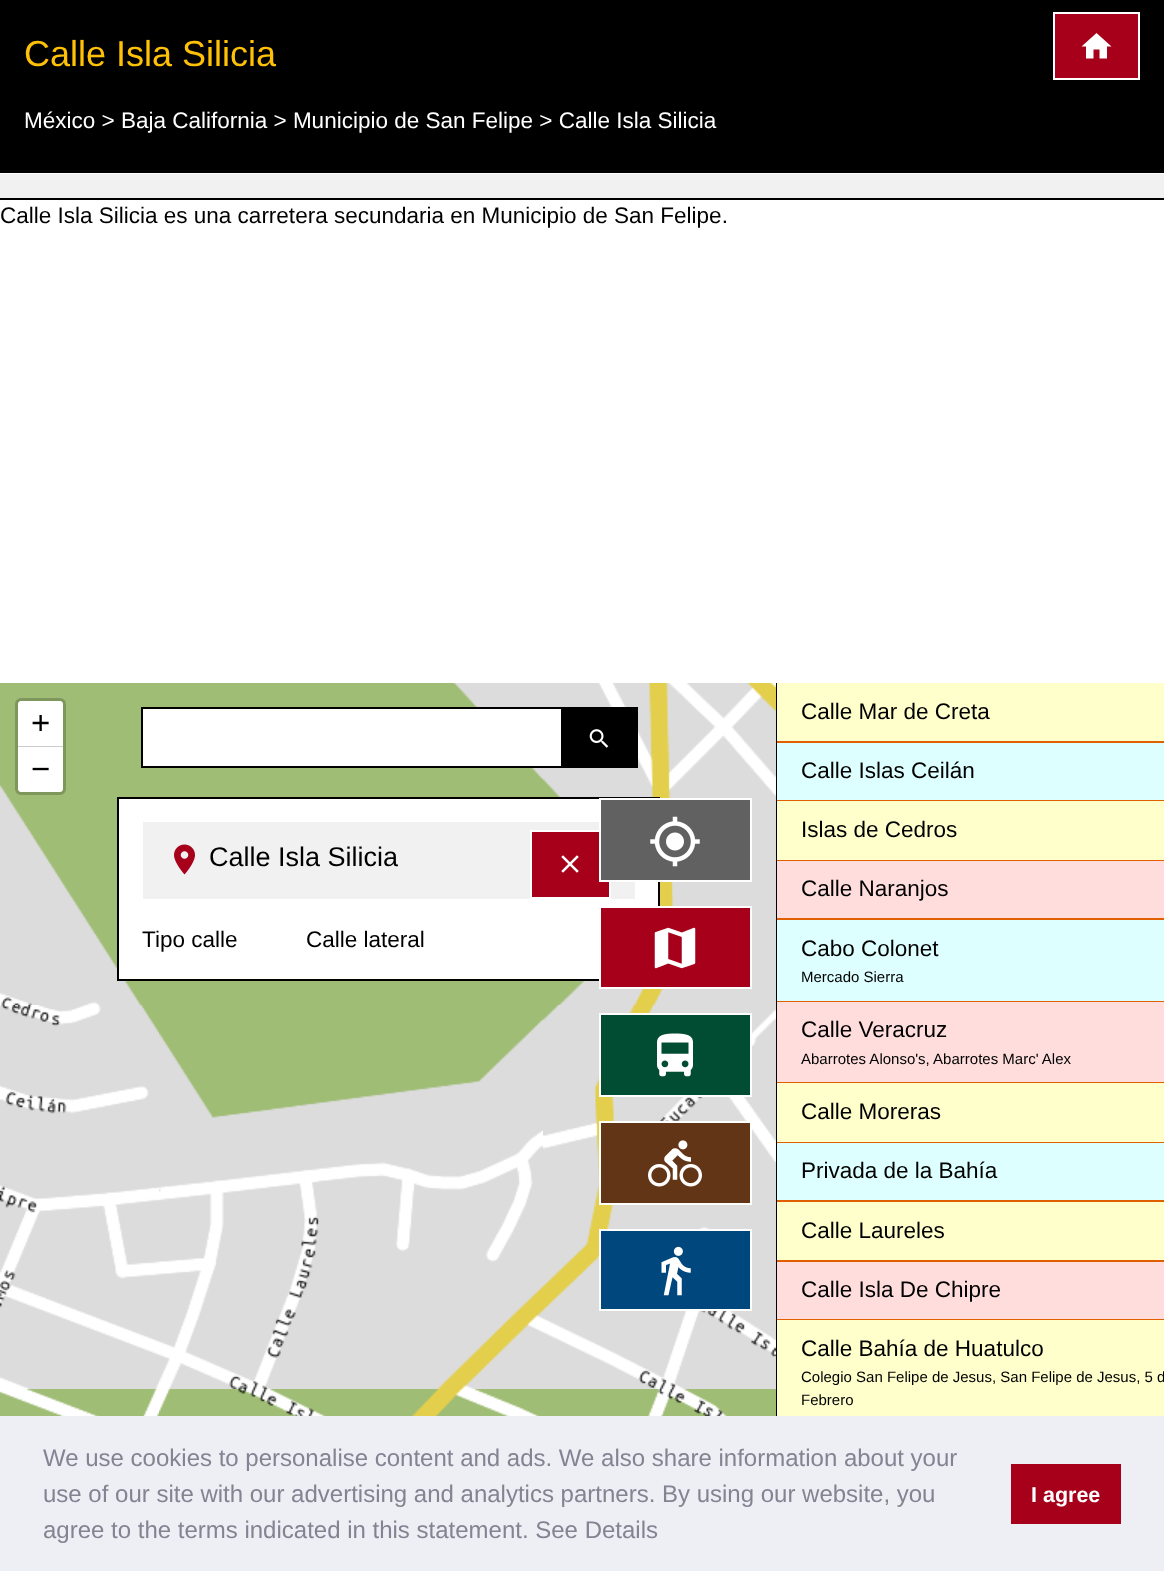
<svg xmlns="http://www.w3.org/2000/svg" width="1164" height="1571">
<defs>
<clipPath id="clip1"><rect x="141" y="707" width="420" height="61"/></clipPath>
</defs>
<rect width="100%" height="100%" fill="#fff"/>
<rect width="1164" height="173" fill="#000"/>
<text x="24" y="66" style="font-family:Liberation Sans;font-size:36px;fill:#ffc107">Calle Isla Silicia</text>
<rect x="1054" y="13" width="85" height="66" fill="#a6001a" stroke="#fff" stroke-width="2"/>
<path d="M1093.5 58.5v-9h6v9h7.5v-12h4.5l-15-13.5l-15 13.5h4.5v12z" fill="#fff"/>
<text x="24" y="128" style="font-family:Liberation Sans;font-size:22.5px;fill:#fff">México &gt; Baja California &gt; Municipio de San Felipe &gt; Calle Isla Silicia</text>
<rect y="174" width="1164" height="24" fill="#f1f1f1"/>
<rect y="198" width="1164" height="2" fill="#000"/>
<text x="0" y="223" style="font-family:Liberation Sans;font-size:22.5px;fill:#000">Calle Isla Silicia es una carretera secundaria en Municipio de San Felipe.</text>
<image x="0" y="683" width="159" height="322" href="media/1.png"/>
<image x="159" y="683" width="384" height="322" href="media/2.png"/>
<image x="543" y="683" width="233" height="322" href="media/3.png"/>
<image x="0" y="1005" width="159" height="384" href="media/4.png"/>
<image x="159" y="1005" width="384" height="384" href="media/5.png"/>
<image x="543" y="1005" width="233" height="384" href="media/6.png"/>
<image x="0" y="1389" width="159" height="27" href="media/7.png"/>
<image x="159" y="1389" width="384" height="27" href="media/8.png"/>
<image x="543" y="1389" width="233" height="27" href="media/9.png"/>
<rect x="16.5" y="699.5" width="48" height="94" rx="4.5" fill="none" stroke="#7f975d" stroke-width="3"/>
<path d="M21 701h39c1.5 0 3 1.5 3 3v43h-45v-43c0-1.5 1.5-3 3-3z" fill="#fff"/>
<rect x="18" y="746" width="45" height="1" fill="#ccc"/>
<text x="31" y="734" style="font-family:Liberation Sans;font-size:33px;fill:#000">+</text>
<path d="M18 747h45v42c0 1.5-1.5 3-3 3h-39c-1.5 0-3-1.5-3-3z" fill="#fff"/>
<text x="31" y="780" style="font-family:Liberation Sans;font-size:33px;fill:#000">−</text>
<rect x="143" y="709" width="418" height="57" fill="#fff"/>
<rect x="561" y="707" width="77" height="61" fill="#000"/>
<g clip-path="url(#clip1)">
<rect x="142" y="708" width="445" height="59" fill="none" stroke="#000" stroke-width="2"/>
</g>
<image x="589" y="729" width="20" height="19" href="media/10.png"/>
<rect x="118" y="798" width="541" height="182" fill="#fff" stroke="#000" stroke-width="2"/>
<rect x="143" y="822" width="492" height="77" fill="#f1f1f1"/>
<image x="174" y="844" width="21" height="31" href="media/11.png"/>
<text x="209" y="866" style="font-family:Liberation Sans;font-size:27px;fill:#000">Calle Isla Silicia</text>
<rect x="531" y="831" width="79" height="67" fill="#a6001a" stroke="#fff" stroke-width="2"/>
<image x="561" y="855" width="18" height="18" href="media/12.png"/>
<text x="142" y="947" style="font-family:Liberation Sans;font-size:22.5px;fill:#000">Tipo calle</text>
<text x="306" y="947" style="font-family:Liberation Sans;font-size:22.5px;fill:#000">Calle lateral</text>
<rect x="600" y="799" width="151" height="82" fill="#616161" stroke="#fff" stroke-width="2"/>
<image x="650" y="816" width="50" height="51" href="media/13.png"/>
<rect x="600" y="907" width="151" height="81" fill="#a6001a" stroke="#fff" stroke-width="2"/>
<image x="654" y="927" width="42" height="42" href="media/14.png"/>
<rect x="600" y="1014" width="151" height="82" fill="#004d33" stroke="#fff" stroke-width="2"/>
<image x="657" y="1033" width="36" height="44" href="media/15.png"/>
<rect x="600" y="1122" width="151" height="82" fill="#633517" stroke="#fff" stroke-width="2"/>
<image x="648" y="1140" width="54" height="47" href="media/16.png"/>
<rect x="600" y="1230" width="151" height="80" fill="#00477e" stroke="#fff" stroke-width="2"/>
<image x="661" y="1246" width="30" height="50" href="media/17.png"/>
<rect x="776" y="683" width="1" height="733" fill="#000"/>
<rect x="777" y="683" width="387" height="58" fill="#ffc"/>
<rect x="777" y="741" width="387" height="2" fill="#e06000"/>
<text x="801" y="719" style="font-family:Liberation Sans;font-size:22.5px;fill:#000">Calle Mar de Creta</text>
<rect x="777" y="743" width="387" height="57" fill="#dff"/>
<rect x="777" y="800" width="387" height="1" fill="#e06000"/>
<text x="801" y="778" style="font-family:Liberation Sans;font-size:22.5px;fill:#000">Calle Islas Ceilán</text>
<rect x="777" y="801" width="387" height="59" fill="#ffc"/>
<rect x="777" y="860" width="387" height="1" fill="#e06000"/>
<text x="801" y="837" style="font-family:Liberation Sans;font-size:22.5px;fill:#000">Islas de Cedros</text>
<rect x="777" y="861" width="387" height="57" fill="#fdd"/>
<rect x="777" y="918" width="387" height="2" fill="#e06000"/>
<text x="801" y="896" style="font-family:Liberation Sans;font-size:22.5px;fill:#000">Calle Naranjos</text>
<rect x="777" y="920" width="387" height="81" fill="#dff"/>
<rect x="777" y="1001" width="387" height="1" fill="#e06000"/>
<text x="801" y="956" style="font-family:Liberation Sans;font-size:22.5px;fill:#000">Cabo Colonet</text>
<text x="801" y="982" style="font-family:Liberation Sans;font-size:15px;fill:#000">Mercado Sierra</text>
<rect x="777" y="1002" width="387" height="80" fill="#fdd"/>
<rect x="777" y="1082" width="387" height="1" fill="#e06000"/>
<text x="801" y="1037" style="font-family:Liberation Sans;font-size:22.5px;fill:#000">Calle Veracruz</text>
<text x="801" y="1064" style="font-family:Liberation Sans;font-size:15px;fill:#000">Abarrotes Alonso's, Abarrotes Marc' Alex</text>
<rect x="777" y="1083" width="387" height="59" fill="#ffc"/>
<rect x="777" y="1142" width="387" height="1" fill="#e06000"/>
<text x="801" y="1119" style="font-family:Liberation Sans;font-size:22.5px;fill:#000">Calle Moreras</text>
<rect x="777" y="1143" width="387" height="57" fill="#dff"/>
<rect x="777" y="1200" width="387" height="2" fill="#e06000"/>
<text x="801" y="1178" style="font-family:Liberation Sans;font-size:22.5px;fill:#000">Privada de la Bahía</text>
<rect x="777" y="1202" width="387" height="58" fill="#ffc"/>
<rect x="777" y="1260" width="387" height="2" fill="#e06000"/>
<text x="801" y="1238" style="font-family:Liberation Sans;font-size:22.5px;fill:#000">Calle Laureles</text>
<rect x="777" y="1262" width="387" height="57" fill="#fdd"/>
<rect x="777" y="1319" width="387" height="1" fill="#e06000"/>
<text x="801" y="1297" style="font-family:Liberation Sans;font-size:22.5px;fill:#000">Calle Isla De Chipre</text>
<rect x="777" y="1320" width="387" height="96" fill="#ffc"/>
<text x="801" y="1356" style="font-family:Liberation Sans;font-size:22.5px;fill:#000">Calle Bahía de Huatulco</text>
<text x="801" y="1382" style="font-family:Liberation Sans;font-size:15px;fill:#000">Colegio San Felipe de Jesus, San Felipe de Jesus, 5 d</text>
<text x="801" y="1405" style="font-family:Liberation Sans;font-size:15px;fill:#000">Febrero</text>
<rect y="1416" width="1164" height="155" fill="#edeff5"/>
<text x="43" y="1466" style="font-family:Liberation Sans;font-size:24px;fill:#838391">We use cookies to personalise content and ads. We also share information about your</text>
<text x="43" y="1502" style="font-family:Liberation Sans;font-size:24px;fill:#838391">use of our site with our advertising and analytics partners. By using our website, you</text>
<text x="43" y="1538" style="font-family:Liberation Sans;font-size:24px;fill:#838391">agree to the terms indicated in this statement. See Details</text>
<rect x="1011" y="1464" width="110" height="60" fill="#a6001a"/>
<text x="1031" y="1502" style="font-family:Liberation Sans;font-size:21.5px;font-weight:bold;fill:#fff">I agree</text>
</svg>
